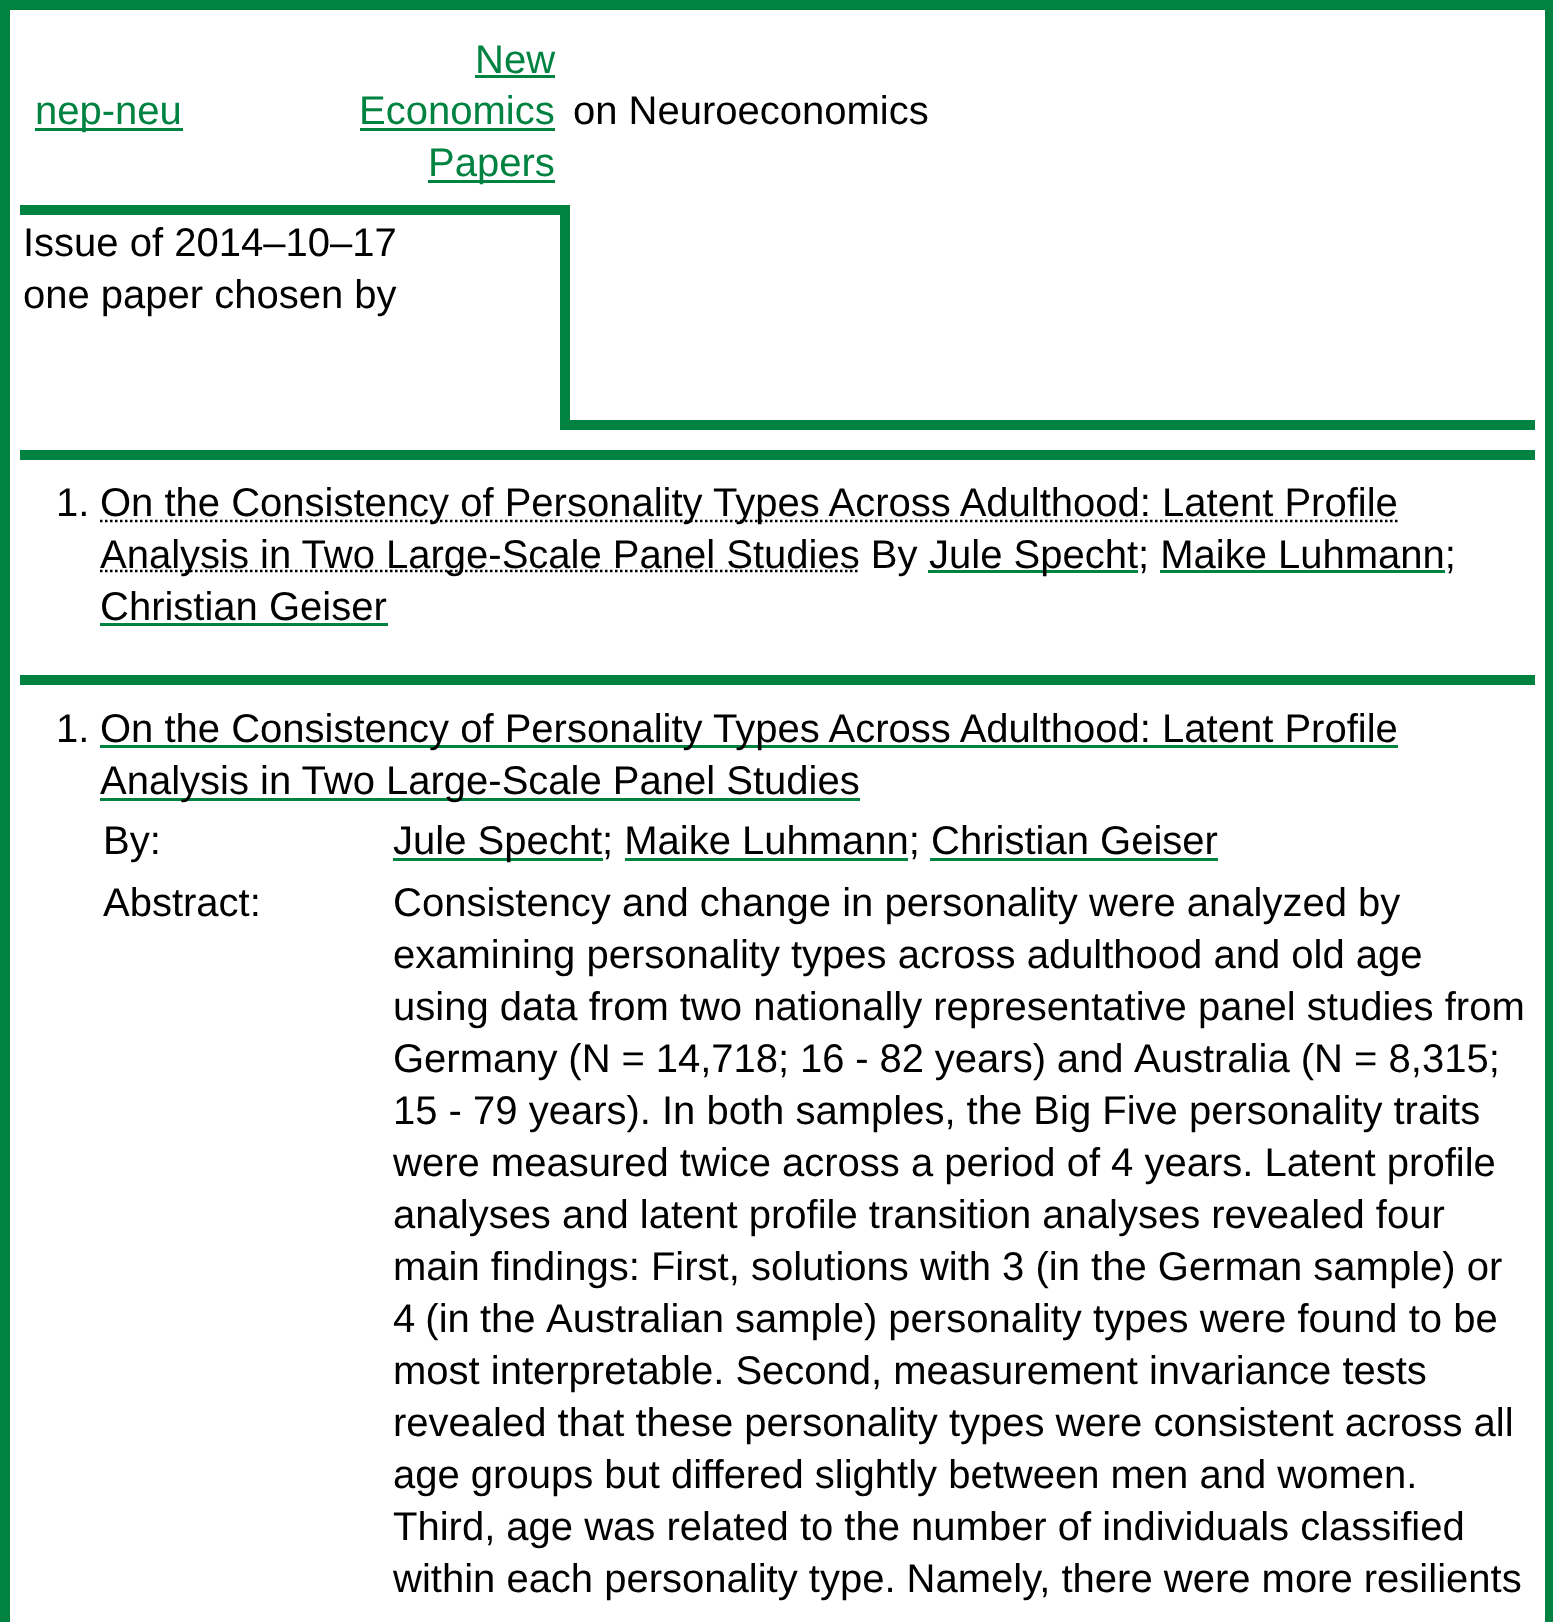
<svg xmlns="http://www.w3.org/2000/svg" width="1553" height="1622">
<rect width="100%" height="100%" fill="#fff"/>
<rect x="5" y="5" width="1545" height="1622" fill="none" stroke="#008241" stroke-width="10"/>
<rect x="35" y="128" width="148" height="3" fill="#008241"/>
<text x="35" y="124" style="font-family:Liberation Sans;font-size:40px;fill:#008241">nep-neu</text>
<text x="475" y="73" style="font-family:Liberation Sans;font-size:40px;fill:#008241">New</text>
<rect x="475" y="75" width="80" height="3" fill="#008241"/>
<text x="359" y="124" style="font-family:Liberation Sans;font-size:40px;fill:#008241">Economics</text>
<rect x="360" y="128" width="195" height="3" fill="#008241"/>
<rect x="428" y="180" width="127" height="3" fill="#008241"/>
<text x="428" y="176" style="font-family:Liberation Sans;font-size:40px;fill:#008241">Papers</text>
<text x="573" y="124" style="font-family:Liberation Sans;font-size:40px;fill:#000">on Neuroeconomics</text>
<rect x="20" y="205" width="540" height="10" fill="#008241"/>
<rect x="560" y="205" width="10" height="225" fill="#008241"/>
<text x="23" y="256" style="font-family:Liberation Sans;font-size:40px;fill:#000">Issue of 2014‒10‒17</text>
<text x="23" y="308" style="font-family:Liberation Sans;font-size:40px;fill:#000">one paper chosen by</text>
<rect x="570" y="420" width="965" height="10" fill="#008241"/>
<rect x="20" y="450" width="1515" height="10" fill="#008241"/>
<text x="56" y="516" style="font-family:Liberation Sans;font-size:40px;fill:#000">1.</text>
<path d="M100 521h1298" fill="none" stroke="#000" stroke-width="2.5" stroke-dasharray="2.5 2.5"/>
<text x="100" y="516" style="font-family:Liberation Sans;font-size:40px;fill:#000">On the Consistency of Personality Types Across Adulthood: Latent Profile</text>
<path d="M100 571h759.5" fill="none" stroke="#000" stroke-width="2.5" stroke-dasharray="2.5 2.5"/>
<text x="100" y="568" style="font-family:Liberation Sans;font-size:40px;fill:#000">Analysis in Two Large-Scale Panel Studies By</text>
<rect x="928" y="570" width="210" height="3" fill="#008241"/>
<text x="929" y="568" style="font-family:Liberation Sans;font-size:40px;fill:#000">Jule Specht; Maike Luhmann;</text>
<rect x="1160" y="570" width="285" height="3" fill="#008241"/>
<text x="100" y="620" style="font-family:Liberation Sans;font-size:40px;fill:#000">Christian Geiser</text>
<rect x="100" y="623" width="288" height="3" fill="#008241"/>
<rect x="20" y="675" width="1515" height="10" fill="#008241"/>
<text x="56" y="742" style="font-family:Liberation Sans;font-size:40px;fill:#000">1.</text>
<rect x="100" y="745" width="1298" height="3" fill="#008241"/>
<text x="100" y="742" style="font-family:Liberation Sans;font-size:40px;fill:#000">On the Consistency of Personality Types Across Adulthood: Latent Profile</text>
<rect x="100" y="798" width="760" height="3" fill="#008241"/>
<text x="100" y="794" style="font-family:Liberation Sans;font-size:40px;fill:#000">Analysis in Two Large-Scale Panel Studies</text>
<text x="103" y="854" style="font-family:Liberation Sans;font-size:40px;fill:#000">By:</text>
<rect x="393" y="858" width="210" height="3" fill="#008241"/>
<text x="393" y="854" style="font-family:Liberation Sans;font-size:40px;fill:#000">Jule Specht; Maike Luhmann; Christian Geiser</text>
<rect x="625" y="858" width="283" height="3" fill="#008241"/>
<rect x="930" y="858" width="288" height="3" fill="#008241"/>
<text x="103" y="916" style="font-family:Liberation Sans;font-size:40px;fill:#000">Abstract:</text>
<text x="393" y="916" style="font-family:Liberation Sans;font-size:40px;fill:#000">Consistency and change in personality were analyzed by</text>
<text x="393" y="968" style="font-family:Liberation Sans;font-size:40px;fill:#000">examining personality types across adulthood and old age</text>
<text x="393" y="1020" style="font-family:Liberation Sans;font-size:40px;fill:#000">using data from two nationally representative panel studies from</text>
<text x="393" y="1072" word-spacing="-0.25" style="font-family:Liberation Sans;font-size:40px;fill:#000">Germany (N = 14,718; 16 - 82 years) and</text>
<text x="1134" y="1072" style="font-family:Liberation Sans;font-size:40px;fill:#000">Australia (N = 8,315;</text>
<text x="393" y="1124" style="font-family:Liberation Sans;font-size:40px;fill:#000">15 - 79 years). In both samples, the Big Five personality traits</text>
<text x="393" y="1176" style="font-family:Liberation Sans;font-size:40px;fill:#000">were measured twice across a period of 4 years. Latent profile</text>
<text x="393" y="1228" style="font-family:Liberation Sans;font-size:40px;fill:#000">analyses and latent profile transition analyses revealed four</text>
<text x="393" y="1280" style="font-family:Liberation Sans;font-size:40px;fill:#000">main findings: First, solutions with 3 (in the German sample) or</text>
<text x="393" y="1332" word-spacing="-1" style="font-family:Liberation Sans;font-size:40px;fill:#000">4 (in the</text>
<text x="546" y="1332" style="font-family:Liberation Sans;font-size:40px;fill:#000">Australian sample) personality types were found to be</text>
<text x="393" y="1384" style="font-family:Liberation Sans;font-size:40px;fill:#000">most interpretable. Second, measurement invariance tests</text>
<text x="393" y="1436" style="font-family:Liberation Sans;font-size:40px;fill:#000">revealed that these personality types were consistent across all</text>
<text x="393" y="1488" style="font-family:Liberation Sans;font-size:40px;fill:#000">age groups but differed slightly between men and women.</text>
<text x="393" y="1540" style="font-family:Liberation Sans;font-size:40px;fill:#000">Third, age was related to the number of individuals classified</text>
<text x="393" y="1592" style="font-family:Liberation Sans;font-size:40px;fill:#000">within each personality type. Namely, there were more resilients</text>
</svg>
